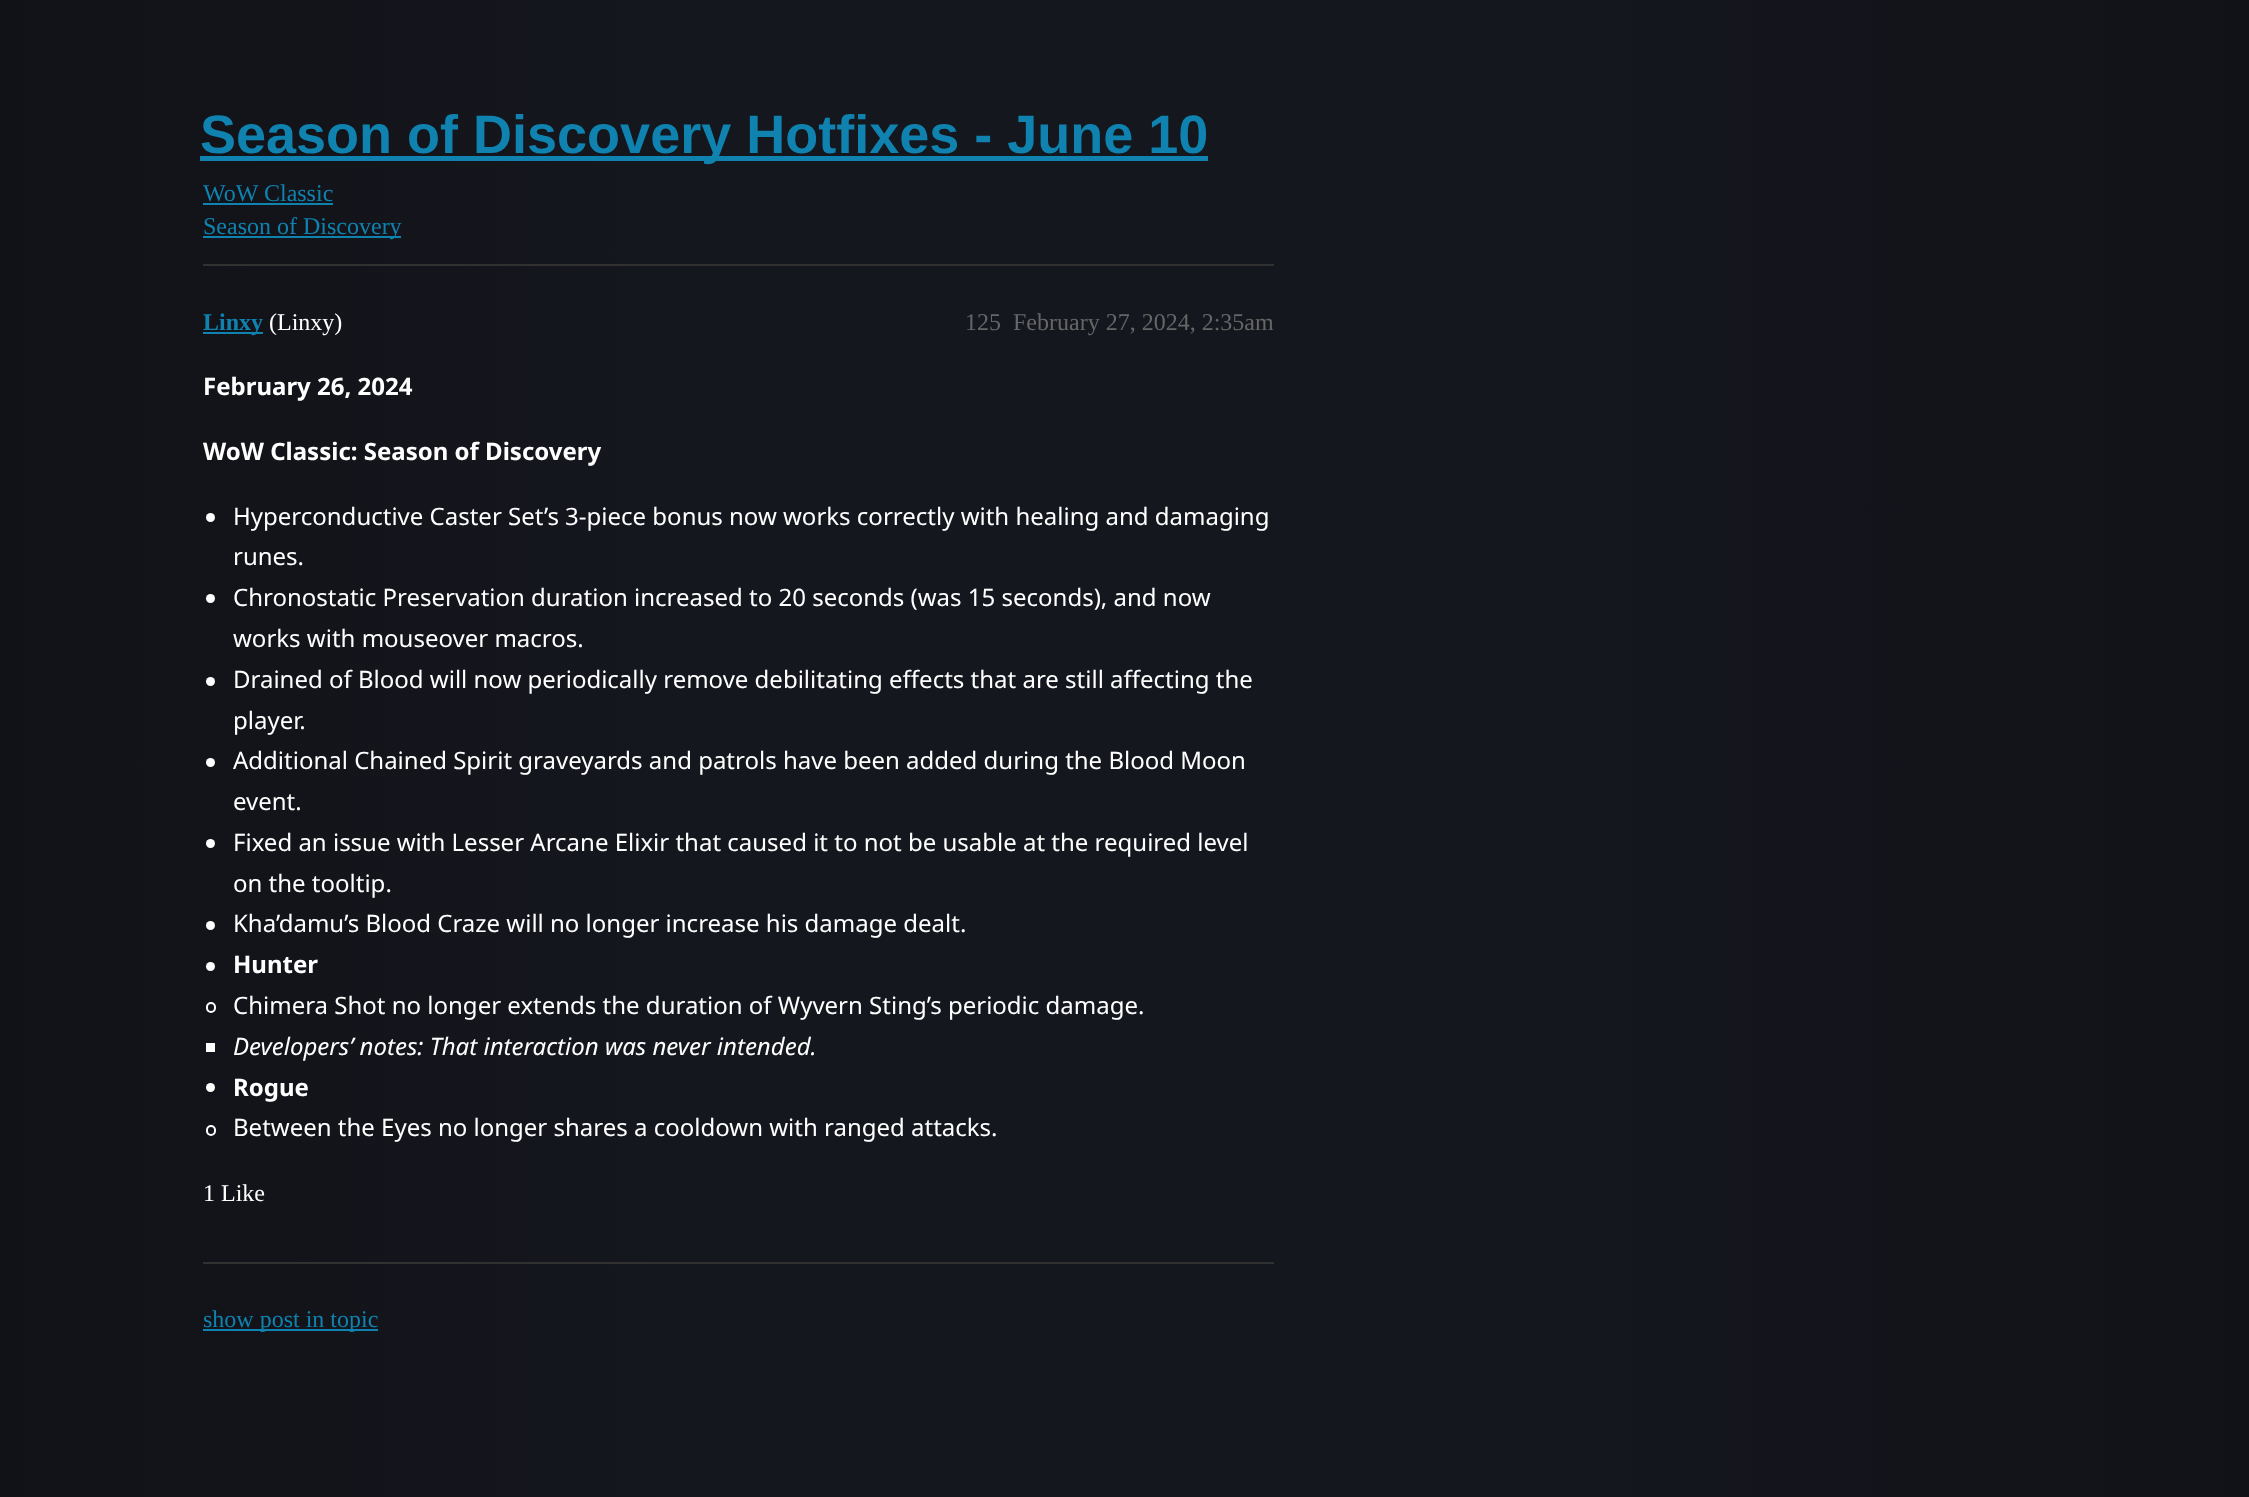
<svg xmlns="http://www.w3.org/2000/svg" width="2249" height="1497">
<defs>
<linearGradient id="g1" gradientUnits="userSpaceOnUse" x1="0" y1="766" x2="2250" y2="766"><stop offset="0" stop-color="#111217"/><stop offset="0.3" stop-color="#15171e"/><stop offset="0.7" stop-color="#15171e"/><stop offset="1" stop-color="#111217"/></linearGradient>
<clipPath id="clip1"><rect x="203" y="366" width="1071" height="807"/></clipPath>
</defs>
<rect width="100%" height="100%" fill="#fff"/>
<rect width="2249" height="1497" fill="url(#g1)"/>
<rect x="200" y="156" width="1008" height="5" fill="#0f82af"/>
<text x="200" y="153" style="font-family:Liberation Sans;font-size:54px;font-weight:bold;fill:#0f82af">Season of Discovery Hotfixes - June 10</text>
<text x="203" y="201" style="font-family:Liberation Serif;font-size:24px;fill:#0f82af">WoW Classic</text>
<rect x="203" y="203" width="130" height="2" fill="#0f82af"/>
<rect x="203" y="236" width="198" height="2" fill="#0f82af"/>
<text x="203" y="234" style="font-family:Liberation Serif;font-size:24px;fill:#0f82af">Season of Discovery</text>
<rect x="203" y="264" width="1071" height="2" fill="#313131"/>
<rect x="203" y="332" width="60" height="2" fill="#0f82af"/>
<text x="203" y="330" style="font-family:Liberation Serif;font-size:24px;font-weight:bold;fill:#0f82af">Linxy</text>
<text x="269" y="330" style="font-family:Liberation Serif;font-size:24px;fill:#fff">(Linxy)</text>
<text x="965" y="330" style="font-family:Liberation Serif;font-size:24px;fill:#666">125</text>
<text x="1013" y="330" style="font-family:Liberation Serif;font-size:24px;fill:#666">February 27, 2024, 2:35am</text>
<text x="203" y="395" style="font-family:Noto Sans;font-size:24px;font-weight:bold;fill:#fff">February 26, 2024</text>
<g clip-path="url(#clip1)">
<text x="203" y="460" style="font-family:Noto Sans;font-size:24px;font-weight:bold;fill:#fff">WoW Classic: Season of Discovery</text>
</g>
<circle cx="210.5" cy="517.5" r="4.5" fill="#fff"/>
<text x="233" y="525" style="font-family:Noto Sans;font-size:24px;fill:#fff">Hyperconductive Caster Set’s 3-piece bonus now works correctly with healing and damaging</text>
<text x="233" y="565" style="font-family:Noto Sans;font-size:24px;fill:#fff">runes.</text>
<circle cx="210.5" cy="598.5" r="4.5" fill="#fff"/>
<text x="233" y="606" style="font-family:Noto Sans;font-size:24px;fill:#fff">Chronostatic Preservation duration increased to 20 seconds (was 15 seconds), and now</text>
<text x="233" y="647" style="font-family:Noto Sans;font-size:24px;fill:#fff">works with mouseover macros.</text>
<circle cx="210.5" cy="681.5" r="4.5" fill="#fff"/>
<text x="233" y="688" style="font-family:Noto Sans;font-size:24px;fill:#fff">Drained of Blood will now periodically remove debilitating effects that are still affecting the</text>
<text x="233" y="729" style="font-family:Noto Sans;font-size:24px;fill:#fff">player.</text>
<circle cx="210.5" cy="762.5" r="4.5" fill="#fff"/>
<text x="233" y="769" style="font-family:Noto Sans;font-size:24px;fill:#fff">Additional Chained Spirit graveyards and patrols have been added during the Blood Moon</text>
<text x="233" y="810" style="font-family:Noto Sans;font-size:24px;fill:#fff">event.</text>
<circle cx="210.5" cy="843.5" r="4.5" fill="#fff"/>
<text x="233" y="851" style="font-family:Noto Sans;font-size:24px;fill:#fff">Fixed an issue with Lesser Arcane Elixir that caused it to not be usable at the required level</text>
<text x="233" y="892" style="font-family:Noto Sans;font-size:24px;fill:#fff">on the tooltip.</text>
<circle cx="210.5" cy="925.5" r="4.5" fill="#fff"/>
<text x="233" y="932" style="font-family:Noto Sans;font-size:24px;fill:#fff">Kha’damu’s Blood Craze will no longer increase his damage dealt.</text>
<circle cx="210.5" cy="966.5" r="4.5" fill="#fff"/>
<text x="233" y="973" style="font-family:Noto Sans;font-size:24px;font-weight:bold;fill:#fff">Hunter</text>
<rect x="207" y="1003" width="8" height="9" rx="4" fill="none" stroke="#fff" stroke-width="2"/>
<text x="233" y="1014" style="font-family:Noto Sans;font-size:24px;fill:#fff">Chimera Shot no longer extends the duration of Wyvern Sting’s periodic damage.</text>
<rect x="206" y="1043" width="9" height="9" fill="#fff"/>
<text x="233" y="1055" style="font-family:Noto Sans;font-size:24px;font-style:italic;fill:#fff">Developers’ notes: That interaction was never intended.</text>
<circle cx="210.5" cy="1087.5" r="4.5" fill="#fff"/>
<text x="233" y="1096" style="font-family:Noto Sans;font-size:24px;font-weight:bold;fill:#fff">Rogue</text>
<rect x="207" y="1126" width="8" height="9" rx="4" fill="none" stroke="#fff" stroke-width="2"/>
<text x="233" y="1136" style="font-family:Noto Sans;font-size:24px;fill:#fff">Between the Eyes no longer shares a cooldown with ranged attacks.</text>
<text x="203" y="1201" style="font-family:Liberation Serif;font-size:24px;fill:#fff">1 Like</text>
<rect x="203" y="1262" width="1071" height="2" fill="#313131"/>
<rect x="203" y="1329" width="175" height="2" fill="#0f82af"/>
<text x="203" y="1327" style="font-family:Liberation Serif;font-size:24px;fill:#0f82af">show post in topic</text>
</svg>
